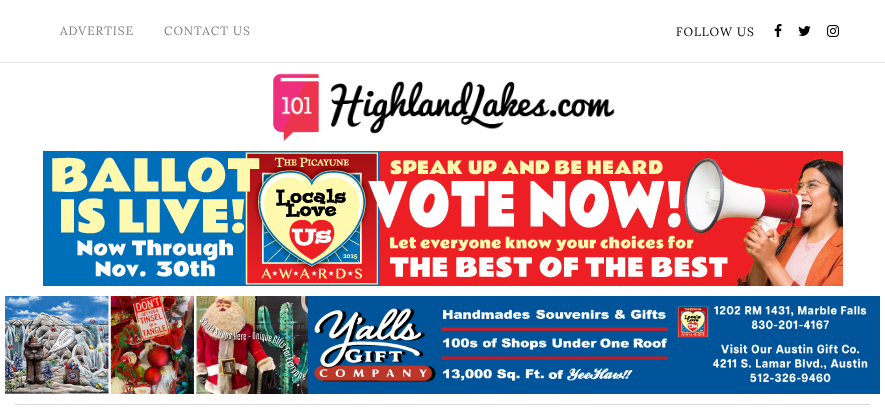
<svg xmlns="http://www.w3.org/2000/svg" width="885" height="408">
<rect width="100%" height="100%" fill="#fff"/>
<rect y="62" width="885" height="1" fill="#e6e6e6"/>
<text x="60" y="35" style="font-family:Lora;font-size:12px;letter-spacing:1px;fill:#808080">ADVERTISE</text>
<text x="164" y="35" style="font-family:Lora;font-size:12px;letter-spacing:1px;fill:#808080">CONTACT US</text>
<text x="676" y="36" style="font-family:Lora;font-size:12px;letter-spacing:1px;fill:#000">FOLLOW US</text>
<image x="774" y="24" width="8" height="13" href="media/1.png"/>
<image x="798" y="26" width="13" height="10" href="media/2.png"/>
<image x="827" y="25" width="12" height="12" href="media/3.png"/>
<image x="273" y="73" width="342" height="69" href="media/4.png"/>
<image x="43" y="151" width="800" height="135" href="media/5.png"/>
<image x="5" y="296" width="875" height="98" href="media/6.png"/>
<rect x="15" y="404" width="855" height="1" fill="#d9d9d9"/>
</svg>
